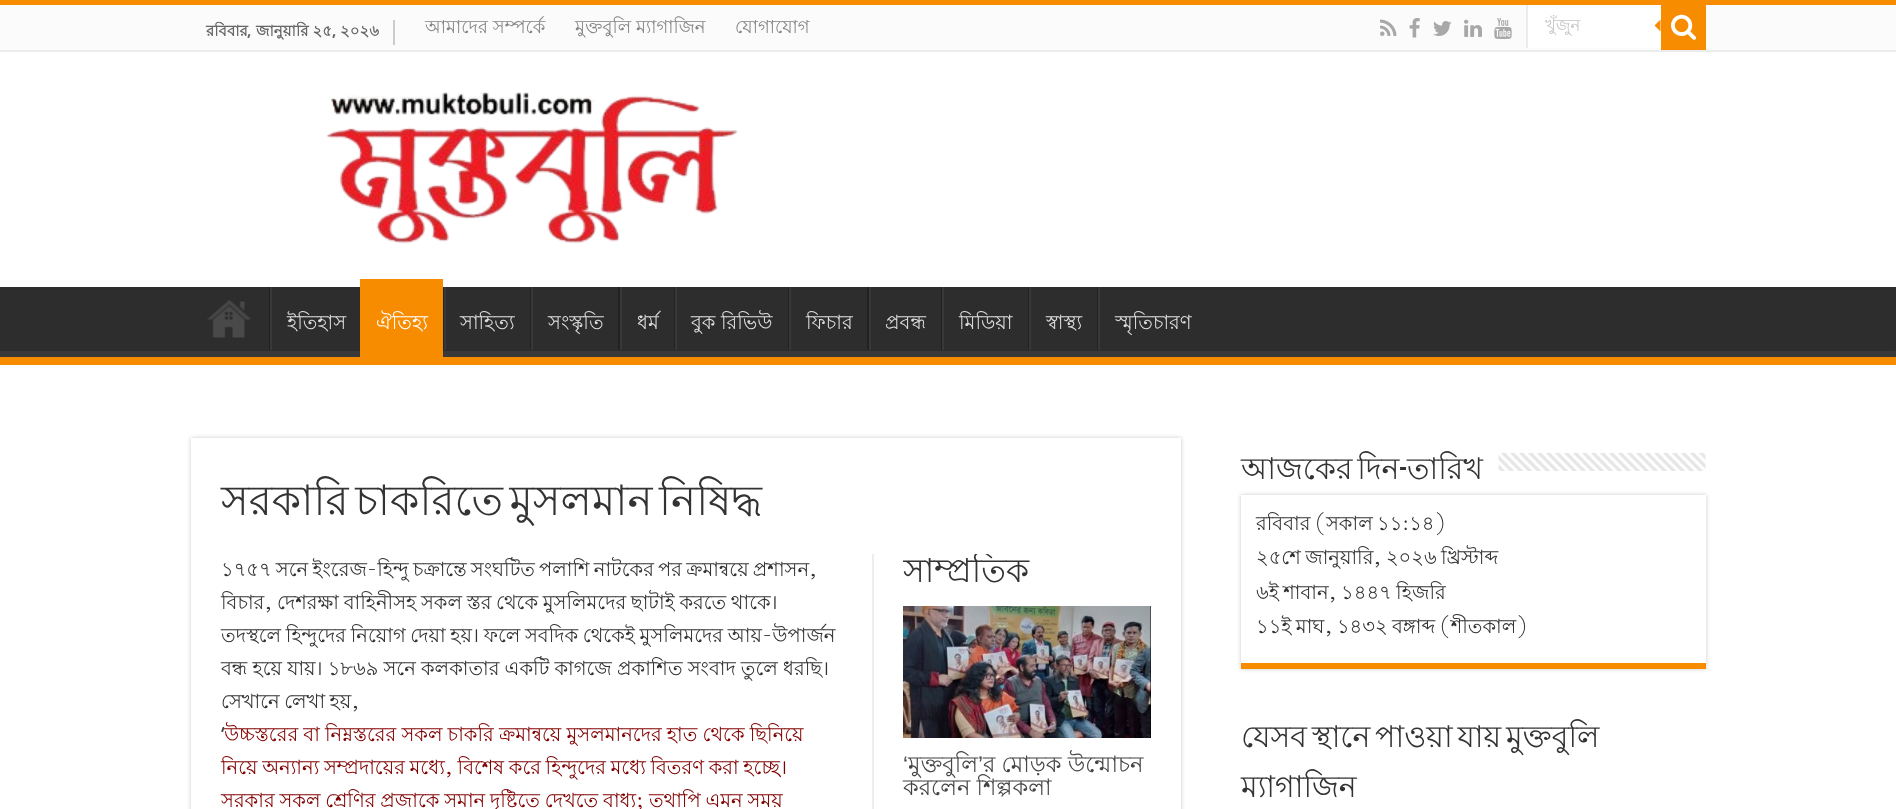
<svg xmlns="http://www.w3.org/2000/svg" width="1896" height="809">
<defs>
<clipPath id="clip1"><rect x="1545" y="14" width="98" height="28"/></clipPath>
<clipPath id="clip2"><rect y="287" width="1896" height="70"/></clipPath>
<clipPath id="clip3"><rect x="903" y="554" width="248" height="52"/></clipPath>
</defs>
<rect width="100%" height="100%" fill="#fff"/>
<rect width="1896" height="5" fill="#f88c00"/>
<rect y="5" width="1896" height="45" fill="#fbfbfb"/>
<rect y="50" width="1896" height="2" fill="#ececec"/>
<rect x="393" y="20" width="2" height="25" fill="#ccc"/>
<text x="206" y="36" style="font-family:Lohit Bengali;font-size:15px;font-weight:bold;fill:#666">রবিবার</text>
<text x="247" y="36" style="font-family:Droid Sans;font-size:15px;font-weight:bold;fill:#666">,</text>
<text x="256" y="36" style="font-family:Lohit Bengali;font-size:15px;font-weight:bold;fill:#666">জানুয়ারি ২৫</text>
<text x="332" y="36" style="font-family:Droid Sans;font-size:15px;font-weight:bold;fill:#666">,</text>
<text x="340" y="36" style="font-family:Lohit Bengali;font-size:15px;font-weight:bold;fill:#666">২০২৬</text>
<text x="425" y="33" style="font-family:Lohit Bengali;font-size:18px;fill:#838383">আমাদের সম্পর্কে</text>
<text x="575" y="33" style="font-family:Lohit Bengali;font-size:18px;fill:#838383">মুক্তবুলি ম্যাগাজিন</text>
<text x="735" y="33" style="font-family:Lohit Bengali;font-size:18px;fill:#838383">যোগাযোগ</text>
<image x="1380" y="19" width="17" height="17" href="media/1.png"/>
<image x="1409" y="18" width="11" height="20" href="media/2.png"/>
<image x="1433" y="21" width="19" height="15" href="media/3.png"/>
<image x="1464" y="19" width="18" height="18" href="media/4.png"/>
<image x="1494" y="18" width="18" height="21" href="media/5.png"/>
<rect x="1528" y="5" width="133" height="43" fill="#fff"/>
<rect x="1526" y="5" width="2" height="43" fill="#ececec"/>
<g clip-path="url(#clip1)">
<text x="1545" y="31" style="font-family:Lohit Bengali;font-size:16.5px;fill:#c5c5c5">খুঁজুন</text>
</g>
<rect x="1661" y="5" width="45" height="45" fill="#f88c00"/>
<image x="1671" y="14" width="25" height="26" href="media/6.png"/>
<path d="M1660.5 19.5v12l-6-6z" fill="#f88c00"/>
<image x="326" y="92" width="412" height="152" href="media/7.png"/>
<rect y="287" width="1896" height="64" fill="#2d2d2d"/>
<g clip-path="url(#clip2)">
<path d="M-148 138h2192v368h-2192zm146 140h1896c1 0 2 0 2 1v71c0 0-1 1-2 1h-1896c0 0-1-1-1-1v-71c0-1 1-1 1-1z" fill="#393939" fill-rule="evenodd"/>
</g>
<rect y="357" width="1896" height="8" fill="#f88c00"/>
<image x="207" y="300" width="44" height="38" href="media/8.png"/>
<rect x="269" y="287" width="1" height="63" fill="#222"/>
<rect x="270" y="287" width="2" height="63" fill="#383838"/>
<text x="287" y="329" style="font-family:Lohit Bengali;font-size:19.5px;fill:#ddd">ইতিহাস</text>
<rect x="360" y="279" width="83" height="78" fill="#f88c00"/>
<text x="376" y="329" style="font-family:Lohit Bengali;font-size:19.5px;fill:#fff">ঐতিহ্য</text>
<rect x="443" y="287" width="1" height="63" fill="#222"/>
<rect x="444" y="287" width="2" height="63" fill="#383838"/>
<text x="460" y="329" style="font-family:Lohit Bengali;font-size:19.5px;fill:#ddd">সাহিত্য</text>
<rect x="530" y="287" width="1" height="63" fill="#222"/>
<rect x="531" y="287" width="2" height="63" fill="#383838"/>
<text x="548" y="329" style="font-family:Lohit Bengali;font-size:19.5px;fill:#ddd">সংস্কৃতি</text>
<rect x="618" y="287" width="2" height="63" fill="#222"/>
<rect x="620" y="287" width="2" height="63" fill="#383838"/>
<text x="637" y="329" style="font-family:Lohit Bengali;font-size:19.5px;fill:#ddd">ধর্ম</text>
<rect x="674" y="287" width="1" height="63" fill="#222"/>
<rect x="675" y="287" width="2" height="63" fill="#383838"/>
<text x="691" y="329" style="font-family:Lohit Bengali;font-size:19.5px;fill:#ddd">বুক রিভিউ</text>
<rect x="788" y="287" width="1" height="63" fill="#222"/>
<rect x="789" y="287" width="2" height="63" fill="#383838"/>
<text x="806" y="329" style="font-family:Lohit Bengali;font-size:19.5px;fill:#ddd">ফিচার</text>
<rect x="867" y="287" width="2" height="63" fill="#222"/>
<rect x="869" y="287" width="2" height="63" fill="#383838"/>
<text x="885" y="329" style="font-family:Lohit Bengali;font-size:19.5px;fill:#ddd">প্রবন্ধ</text>
<rect x="941" y="287" width="1" height="63" fill="#222"/>
<rect x="942" y="287" width="2" height="63" fill="#383838"/>
<text x="959" y="329" style="font-family:Lohit Bengali;font-size:19.5px;fill:#ddd">মিডিয়া</text>
<rect x="1028" y="287" width="1" height="63" fill="#222"/>
<rect x="1029" y="287" width="2" height="63" fill="#383838"/>
<text x="1046" y="329" style="font-family:Lohit Bengali;font-size:19.5px;fill:#ddd">স্বাস্থ্য</text>
<rect x="1097" y="287" width="1" height="63" fill="#222"/>
<rect x="1098" y="287" width="2" height="63" fill="#383838"/>
<text x="1115" y="329" style="font-family:Lohit Bengali;font-size:19.5px;fill:#ddd">স্মৃতিচারণ</text>
<rect x="191" y="438" width="990" height="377" fill="#cacaca" filter="blur(2px)"/>
<rect x="191" y="438" width="990" height="371" fill="#fff"/>
<text x="221" y="515" word-spacing="-5" style="font-family:Lohit Bengali;font-size:42px;fill:#333">সরকারি চাকরিতে মুসলমান নিষিদ্ধ</text>
<text x="221" y="576" word-spacing="-1.25" style="font-family:Lohit Bengali;font-size:19.5px;fill:#333">১৭৫৭ সনে ইংরেজ-হিন্দু চক্রান্তে সংঘটিত পলাশি নাটকের পর ক্রমান্বয়ে প্রশাসন,</text>
<text x="221" y="609" word-spacing="-0.75" style="font-family:Lohit Bengali;font-size:19.5px;fill:#333">বিচার, দেশরক্ষা বাহিনীসহ সকল স্তর থেকে মুসলিমদের ছাটাই করতে থাকে।</text>
<text x="221" y="642" word-spacing="-0.75" style="font-family:Lohit Bengali;font-size:19.5px;fill:#333">তদস্থলে হিন্দুদের নিয়োগ দেয়া হয়। ফলে সবদিক থেকেই মুসলিমদের আয়-উপার্জন</text>
<text x="221" y="675" word-spacing="-0.25" style="font-family:Lohit Bengali;font-size:19.5px;fill:#333">বন্ধ হয়ে যায়। ১৮৬৯ সনে কলকাতার একটি কাগজে প্রকাশিত সংবাদ তুলে ধরছি।</text>
<text x="221" y="708" word-spacing="-1" style="font-family:Lohit Bengali;font-size:19.5px;fill:#333">সেখানে লেখা হয়,</text>
<text x="221" y="741" style="font-family:Droid Sans;font-size:19.5px;fill:#333">‘</text>
<text x="224" y="741" word-spacing="-0.25" style="font-family:Lohit Bengali;font-size:19.5px;fill:#800000">উচ্চস্তরের বা নিম্নস্তরের সকল চাকরি ক্রমান্বয়ে মুসলমানদের হাত থেকে ছিনিয়ে</text>
<text x="221" y="774" word-spacing="-0.75" style="font-family:Lohit Bengali;font-size:19.5px;fill:#800000">নিয়ে অন্যান্য সম্প্রদায়ের মধ্যে, বিশেষ করে হিন্দুদের মধ্যে বিতরণ করা হচ্ছে।</text>
<text x="221" y="807" word-spacing="-0.6" style="font-family:Lohit Bengali;font-size:19.5px;fill:#800000">সরকার সকল শ্রেণির প্রজাকে সমান দৃষ্টিতে দেখতে বাধ্য; তথাপি এমন সময়</text>
<rect x="872" y="554" width="2" height="255" fill="#eee"/>
<g clip-path="url(#clip3)">
<text x="903" y="582" style="font-family:Lohit Bengali;font-size:33px;fill:#333">সাম্প্রতিক</text>
</g>
<rect x="1150" y="606" width="1" height="132" fill="#000"/>
<image x="903" y="606" width="248" height="132" href="media/9.png"/>
<text x="903" y="772" style="font-family:Liberation Sans;font-size:22.5px;fill:#444">‘</text>
<text x="908" y="772" style="font-family:Lohit Bengali;font-size:22.5px;fill:#444">মুক্তবুলি</text>
<text x="983" y="772" style="font-family:Lohit Bengali;font-size:22.5px;fill:#444">র মোড়ক উন্মোচন</text>
<text x="978" y="772" style="font-family:Liberation Sans;font-size:22.5px;fill:#444">’</text>
<text x="903" y="795" style="font-family:Lohit Bengali;font-size:22.5px;fill:#444">করলেন শিল্পকলা</text>
<text x="1241" y="479" word-spacing="-3.5" style="font-family:Lohit Bengali;font-size:30px;fill:#333">আজকের দিন</text>
<text x="1399" y="479" style="font-family:Bebas Neue;font-size:30px;font-weight:bold;fill:#333">-</text>
<text x="1407" y="479" style="font-family:Lohit Bengali;font-size:30px;fill:#333">তারিখ</text>
<image x="1498" y="453" width="208" height="18" href="media/10.png"/>
<rect x="1241" y="495" width="465" height="174" fill="#cacaca" filter="blur(2px)"/>
<rect x="1241" y="495" width="465" height="168" fill="#fff"/>
<rect x="1241" y="663" width="465" height="6" fill="#f88c00"/>
<text x="1256" y="530" word-spacing="-1" style="font-family:Lohit Bengali;font-size:19.5px;fill:#333">রবিবার (সকাল ১১:১৪)</text>
<text x="1256" y="564" word-spacing="-1" style="font-family:Lohit Bengali;font-size:19.5px;fill:#333">২৫শে জানুয়ারি, ২০২৬ খ্রিস্টাব্দ</text>
<text x="1256" y="599" word-spacing="-1" style="font-family:Lohit Bengali;font-size:19.5px;fill:#333">৬ই শাবান, ১৪৪৭ হিজরি</text>
<text x="1256" y="633" word-spacing="-1" style="font-family:Lohit Bengali;font-size:19.5px;fill:#333">১১ই মাঘ, ১৪৩২ বঙ্গাব্দ (শীতকাল)</text>
<text x="1241" y="747" word-spacing="-3.5" style="font-family:Lohit Bengali;font-size:30px;fill:#333">যেসব স্থানে পাওয়া যায় মুক্তবুলি</text>
<text x="1241" y="797" style="font-family:Lohit Bengali;font-size:30px;fill:#333">ম্যাগাজিন</text>
</svg>
